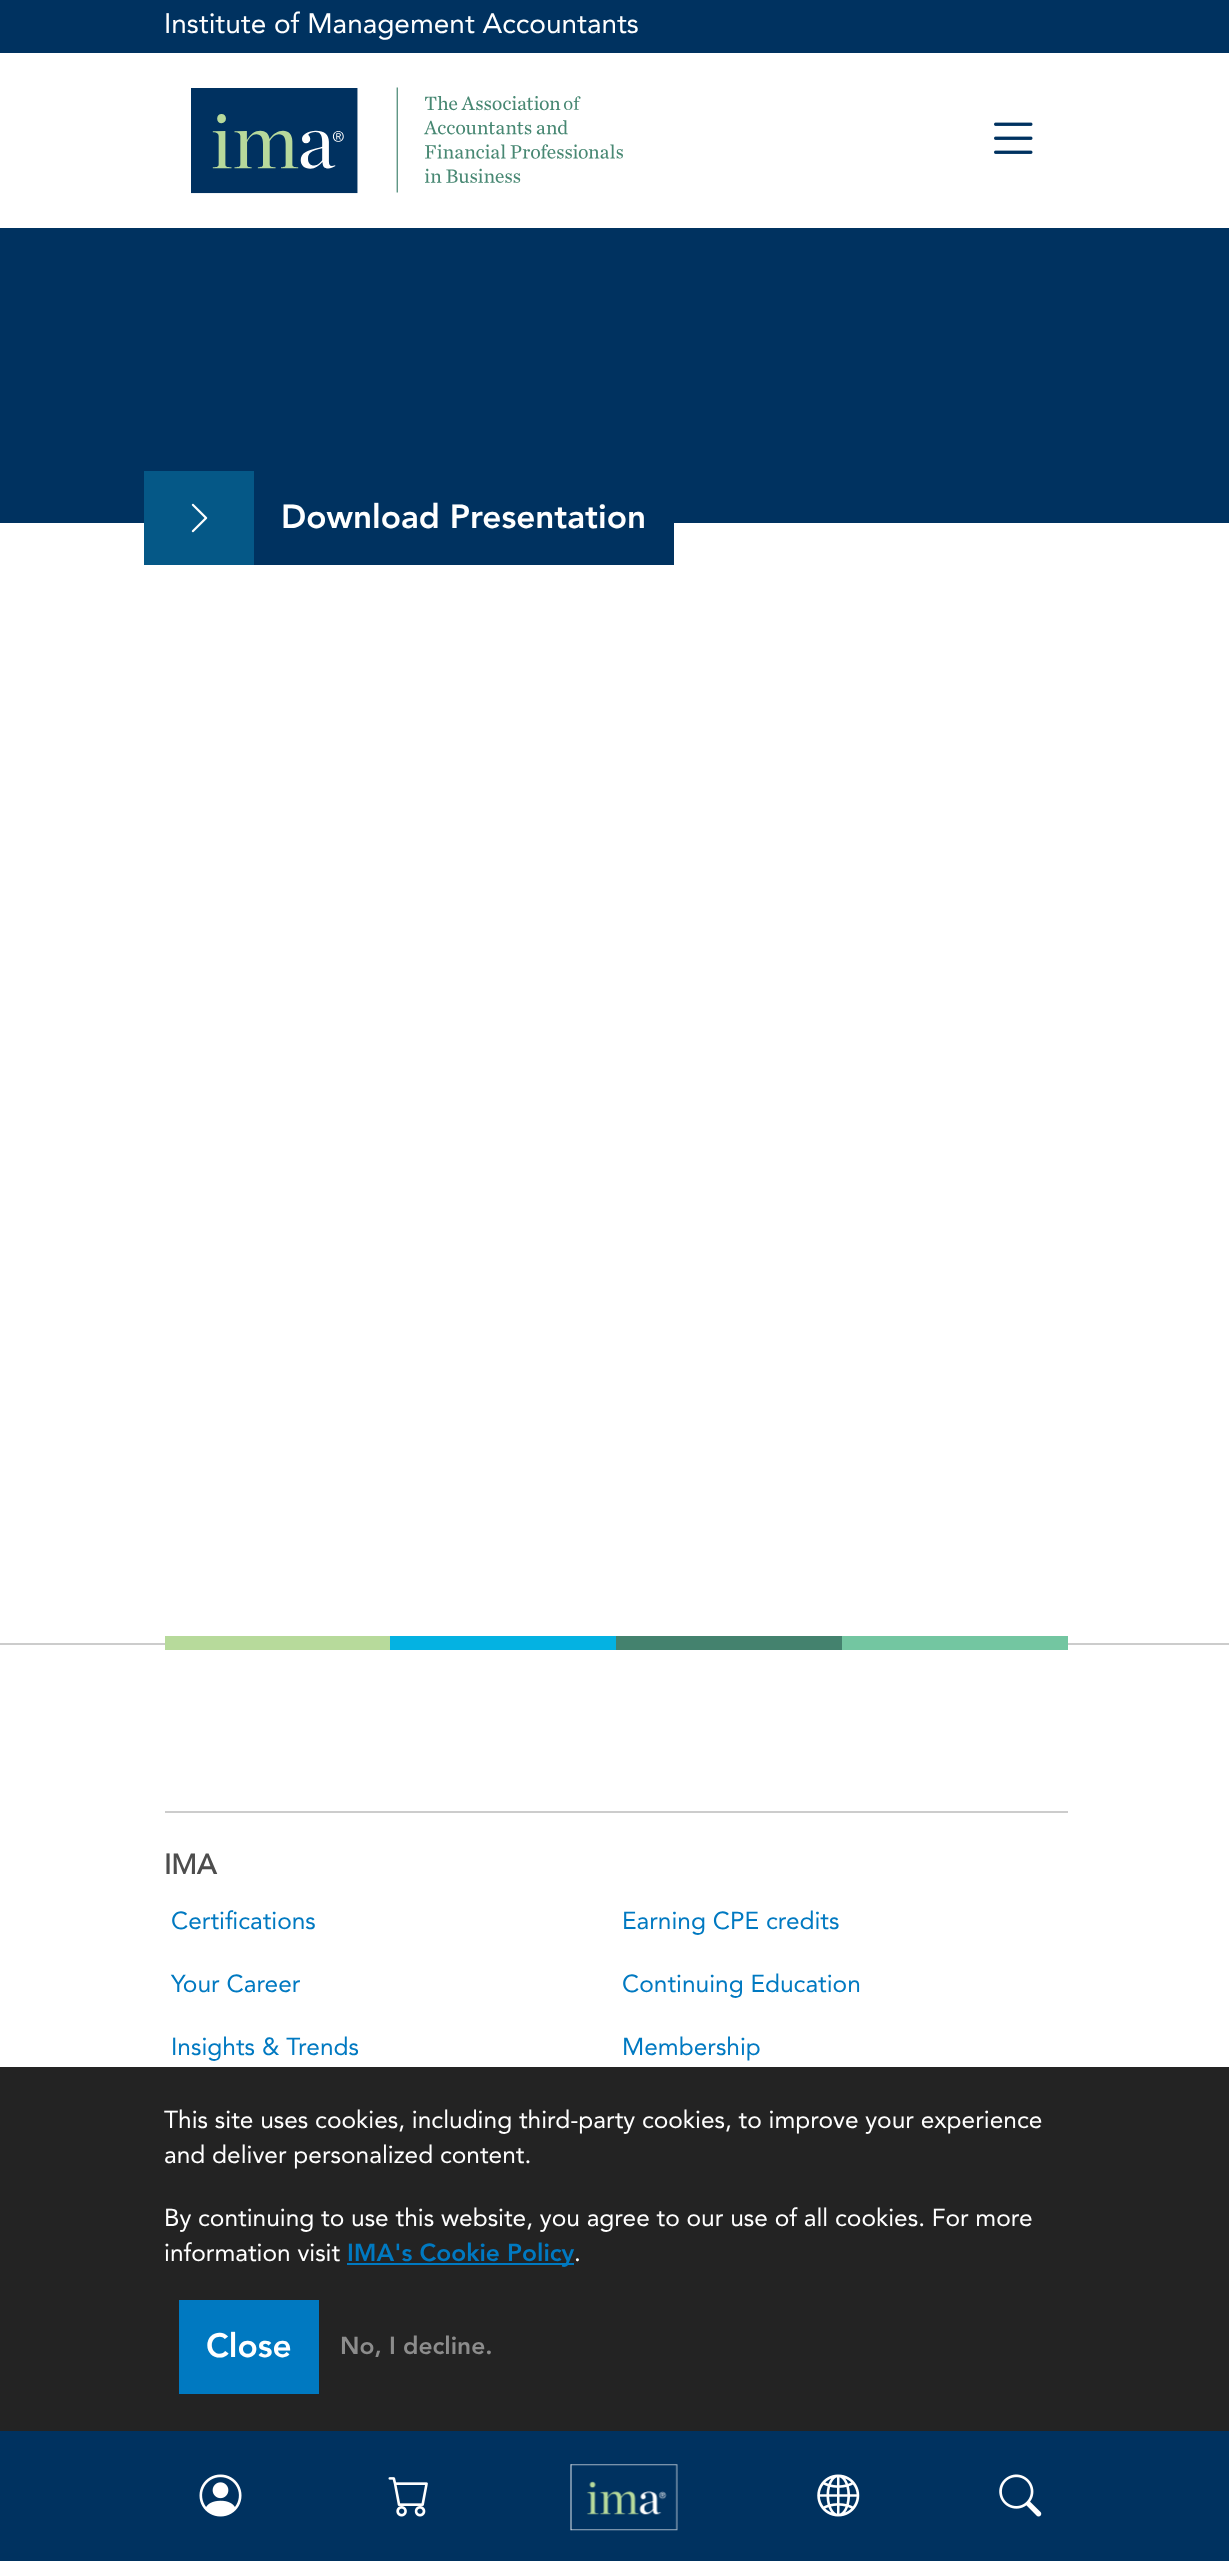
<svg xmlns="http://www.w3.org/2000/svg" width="1229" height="2561">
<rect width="100%" height="100%" fill="#fff"/>
<rect width="1229" height="53" fill="#003260"/>
<text x="164" y="33" style="font-family:Avenir;font-size:28px;fill:#fff">Institute of Management Accountants</text>
<image x="191" y="87" width="432" height="107" href="media/1.png"/>
<image x="994" y="122" width="39" height="32" href="media/2.png"/>
<rect y="2067" width="1229" height="364" fill="#232323"/>
<text x="164" y="2128" style="font-family:Avenir;font-size:24.5px;fill:#fff">This site uses cookies, including third-party cookies, to improve your experience</text>
<text x="164" y="2163" style="font-family:Avenir;font-size:24.5px;fill:#fff">and deliver personalized content.</text>
<text x="164" y="2226" style="font-family:Avenir;font-size:24.5px;fill:#fff">By continuing to use this website, you agree to our use of all cookies. For more</text>
<text x="164" y="2261" style="font-family:Avenir;font-size:24.5px;fill:#fff">information visit</text>
<rect x="347" y="2263" width="227" height="2" fill="#0079c1"/>
<text x="347" y="2261" style="font-family:Avenir;font-size:24.5px;font-weight:900;fill:#0079c1">IMA's Cookie Policy</text>
<text x="574" y="2261" style="font-family:Avenir;font-size:24.5px;fill:#fff">.</text>
<rect x="179" y="2300" width="140" height="94" fill="#0079c1"/>
<text x="206" y="2357" style="font-family:Avenir;font-size:33.25px;font-weight:900;fill:#fff">Close</text>
<text x="340" y="2354" style="font-family:Avenir;font-size:24.5px;font-weight:900;fill:#8c8c8c">No, I decline.</text>
<rect y="228" width="1229" height="295" fill="#003260"/>
<rect x="254" y="523" width="420" height="42" fill="#003260"/>
<rect x="144" y="471" width="110" height="94" fill="#055887"/>
<image x="191" y="503" width="17" height="30" href="media/3.png"/>
<text x="281" y="528" style="font-family:Avenir;font-size:33.25px;font-weight:900;fill:#fff">Download Presentation</text>
<rect y="1643" width="1229" height="2" fill="#ccc"/>
<rect x="165" y="1636" width="225" height="14" fill="#b7da9b"/>
<rect x="390" y="1636" width="226" height="14" fill="#04b2e2"/>
<rect x="616" y="1636" width="226" height="14" fill="#44826e"/>
<rect x="842" y="1636" width="226" height="14" fill="#73c6a1"/>
<rect x="165" y="1811" width="903" height="2" fill="#ccc"/>
<text x="164" y="1874" style="font-family:Avenir;font-size:28px;font-weight:bold;fill:#4d4d4d">IMA</text>
<text x="171" y="1929" style="font-family:Avenir;font-size:24.5px;fill:#0079c1">Certifications</text>
<text x="622" y="1929" style="font-family:Avenir;font-size:24.5px;fill:#0079c1">Earning CPE credits</text>
<text x="171" y="1992" style="font-family:Avenir;font-size:24.5px;fill:#0079c1">Your Career</text>
<text x="622" y="1992" style="font-family:Avenir;font-size:24.5px;fill:#0079c1">Continuing Education</text>
<text x="171" y="2055" style="font-family:Avenir;font-size:24.5px;fill:#0079c1">Insights &amp; Trends</text>
<text x="622" y="2055" style="font-family:Avenir;font-size:24.5px;fill:#0079c1">Membership</text>
<rect y="2431" width="1229" height="130" fill="#003260"/>
<image x="199" y="2474" width="43" height="43" href="media/4.png"/>
<image x="388" y="2477" width="40" height="40" href="media/5.png"/>
<image x="570" y="2464" width="108" height="67" href="media/6.png"/>
<image x="817" y="2474" width="43" height="43" href="media/7.png"/>
<image x="999" y="2474" width="43" height="43" href="media/8.png"/>
</svg>
